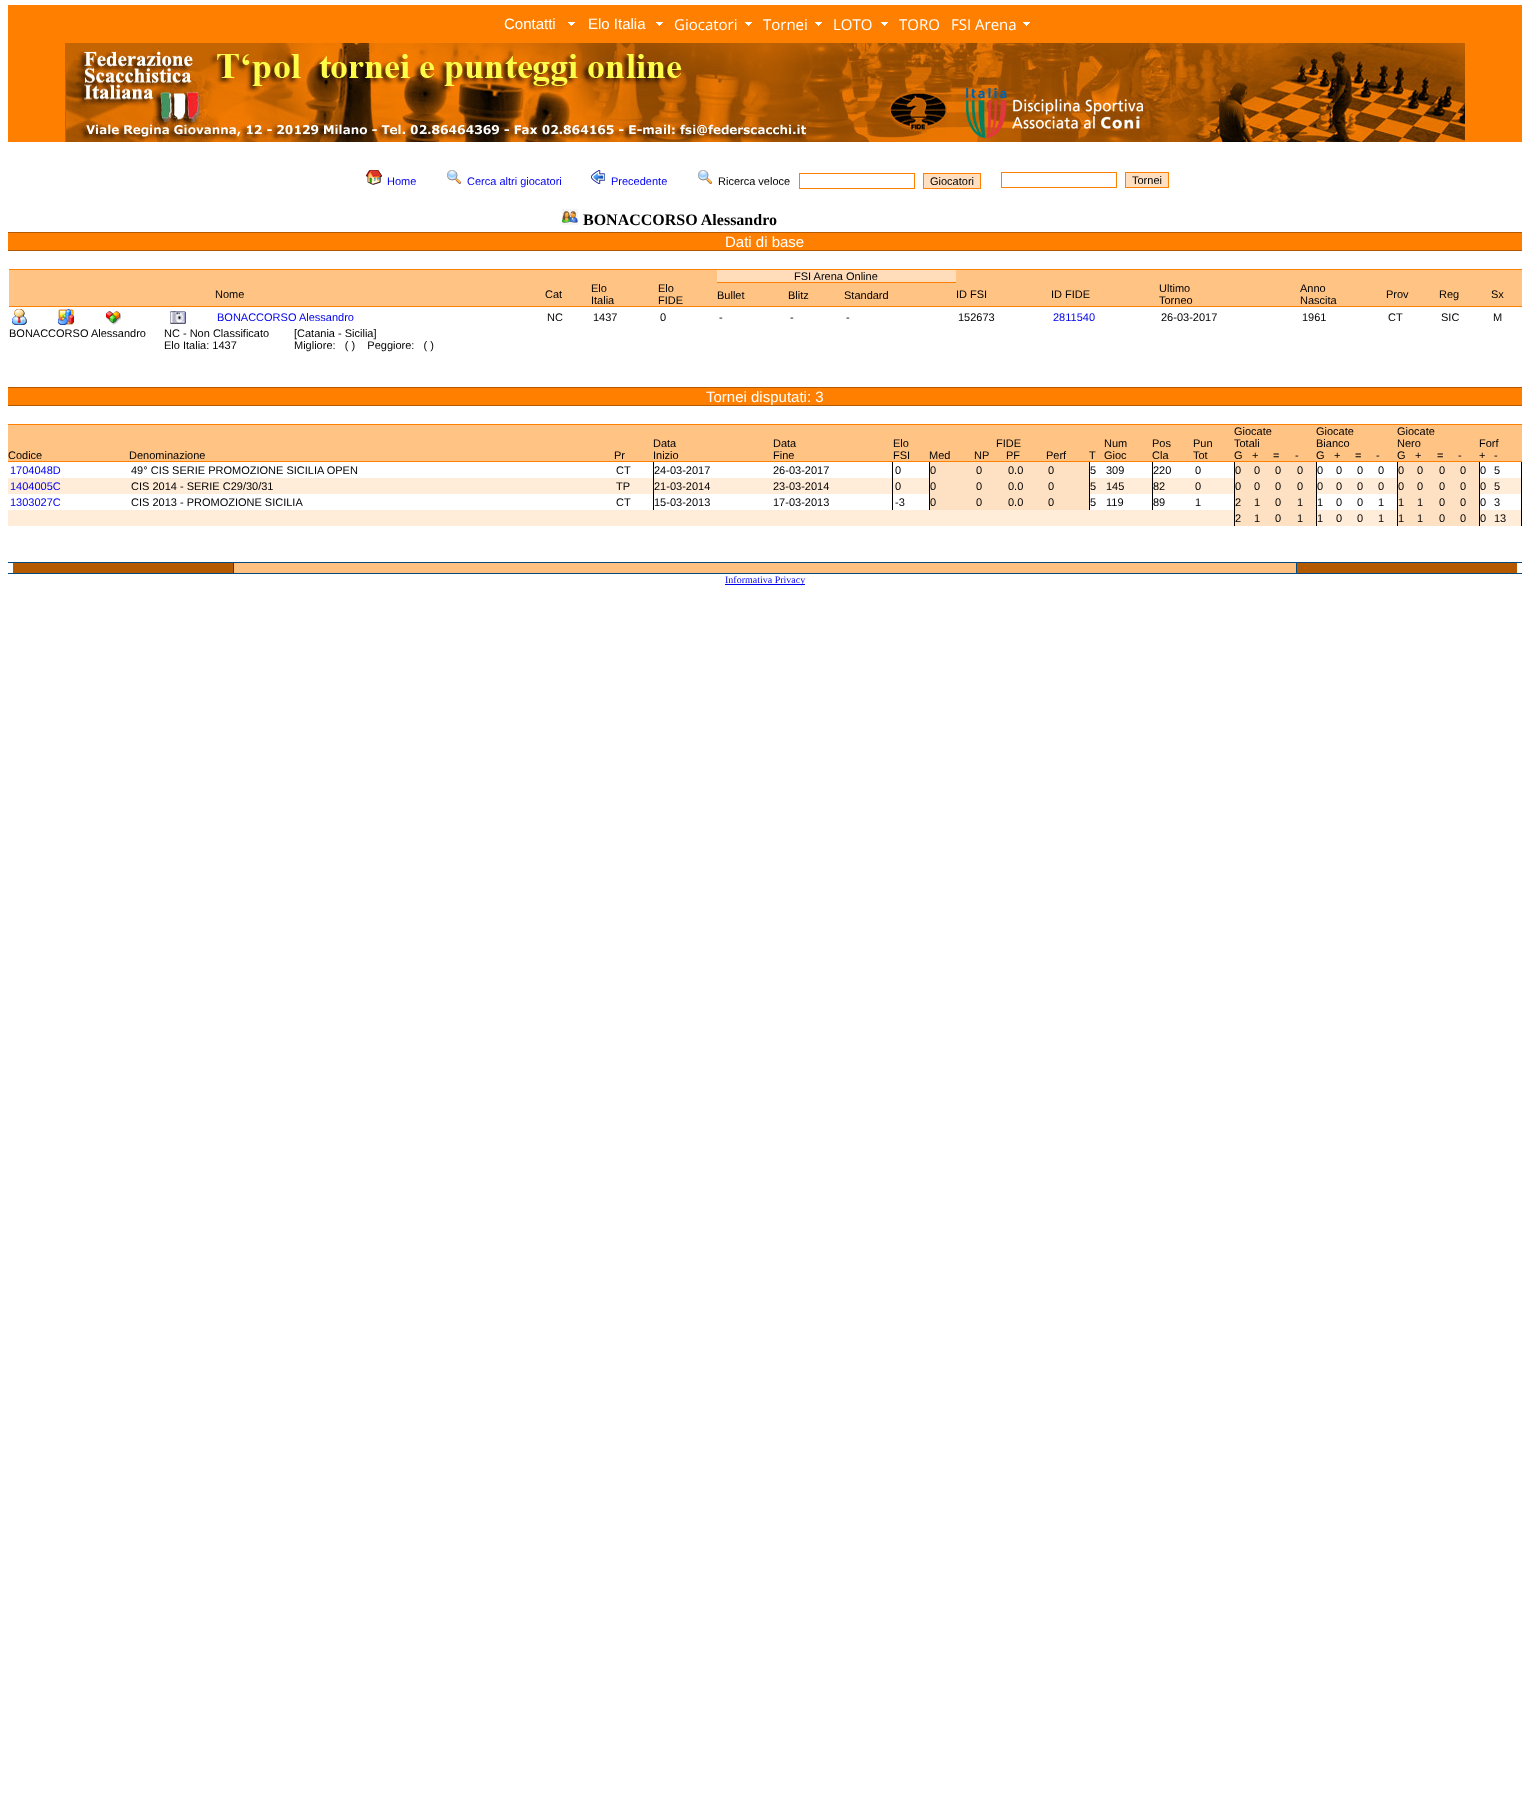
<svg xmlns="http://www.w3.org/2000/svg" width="1530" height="1799">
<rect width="100%" height="100%" fill="#fff"/>
<rect x="8" y="5" width="1514" height="137" fill="#ff8000"/>
<image x="568" y="22" width="7" height="4" href="media/1.png"/>
<text x="504" y="29" style="font-family:Liberation Sans;font-size:15px;fill:#fff">Contatti</text>
<image x="656" y="22" width="7" height="4" href="media/1.png"/>
<text x="588" y="29" style="font-family:Liberation Sans;font-size:15px;fill:#fff">Elo Italia</text>
<image x="745" y="22" width="7" height="4" href="media/1.png"/>
<text x="674" y="30" style="font-family:Open Sans;font-size:15px;fill:#fff">Giocatori</text>
<image x="815" y="22" width="7" height="4" href="media/1.png"/>
<text x="763" y="30" style="font-family:Open Sans;font-size:15px;fill:#fff">Tornei</text>
<image x="881" y="22" width="7" height="4" href="media/1.png"/>
<text x="833" y="30" style="font-family:Open Sans;font-size:15px;fill:#fff">LOTO</text>
<text x="899" y="30" style="font-family:Open Sans;font-size:15px;fill:#fff">TORO</text>
<image x="1023" y="22" width="7" height="4" href="media/1.png"/>
<text x="951" y="30" style="font-family:Open Sans;font-size:15px;fill:#fff">FSI Arena</text>
<image x="65" y="43" width="1400" height="99" href="media/2.png"/>
<image x="366" y="170" width="16" height="15" href="media/3.png"/>
<text x="387" y="185" style="font-family:Liberation Sans;font-size:11px;fill:#00e">Home</text>
<image x="447" y="170" width="14" height="14" href="media/4.png"/>
<text x="467" y="185" style="font-family:Liberation Sans;font-size:11px;fill:#00e">Cerca altri giocatori</text>
<image x="591" y="170" width="14" height="14" href="media/5.png"/>
<text x="611" y="185" style="font-family:Liberation Sans;font-size:11px;fill:#00e">Precedente</text>
<image x="698" y="170" width="14" height="14" href="media/4.png"/>
<text x="718" y="185" style="font-family:Liberation Sans;font-size:11px;fill:#000">Ricerca veloce</text>
<rect x="799.5" y="173.5" width="115" height="15" fill="none" stroke="#ff8000"/>
<rect x="923.5" y="173.5" width="57" height="15" fill="#ffdfbf" stroke="#ff8000"/>
<text x="930" y="185" style="font-family:Liberation Sans;font-size:11px;fill:#000">Giocatori</text>
<rect x="1001.5" y="172.5" width="115" height="15" fill="none" stroke="#ff8000"/>
<rect x="1125.5" y="172.5" width="43" height="15" fill="#ffdfbf" stroke="#ff8000"/>
<text x="1132" y="184" style="font-family:Liberation Sans;font-size:11px;fill:#000">Tornei</text>
<image x="562" y="209" width="16" height="16" href="media/6.png"/>
<text x="583" y="225" style="font-family:Liberation Serif;font-size:16px;font-weight:bold;fill:#000">BONACCORSO Alessandro</text>
<rect x="8" y="233" width="1514" height="17" fill="#ff8000"/>
<rect x="8" y="232" width="1514" height="1" fill="#b35a00"/>
<rect x="8" y="250" width="1514" height="1" fill="#b35a00"/>
<text x="725" y="247" style="font-family:Liberation Sans;font-size:15px;fill:#fff">Dati di base</text>
<rect x="9" y="270" width="708" height="12" fill="#ffc384"/>
<rect x="9" y="269" width="1513" height="1" fill="#ff8000"/>
<rect x="717" y="270" width="239" height="12" fill="#fdb"/>
<text x="794" y="280" style="font-family:Liberation Sans;font-size:11px;fill:#000">FSI Arena Online</text>
<rect x="956" y="270" width="566" height="12" fill="#ffc384"/>
<rect x="9" y="282" width="708" height="24" fill="#ffc384"/>
<rect x="9" y="306" width="1513" height="1" fill="#ff8000"/>
<text x="215" y="298" style="font-family:Liberation Sans;font-size:11px;fill:#000">Nome</text>
<text x="545" y="298" style="font-family:Liberation Sans;font-size:11px;fill:#000">Cat</text>
<text x="591" y="292" style="font-family:Liberation Sans;font-size:11px;fill:#000">Elo</text>
<text x="591" y="304" style="font-family:Liberation Sans;font-size:11px;fill:#000">Italia</text>
<text x="658" y="292" style="font-family:Liberation Sans;font-size:11px;fill:#000">Elo</text>
<text x="658" y="304" style="font-family:Liberation Sans;font-size:11px;fill:#000">FIDE</text>
<rect x="717" y="283" width="239" height="23" fill="#ffc384"/>
<rect x="717" y="282" width="239" height="1" fill="#ff8000"/>
<text x="717" y="299" style="font-family:Liberation Sans;font-size:11px;fill:#000">Bullet</text>
<text x="788" y="299" style="font-family:Liberation Sans;font-size:11px;fill:#000">Blitz</text>
<text x="844" y="299" style="font-family:Liberation Sans;font-size:11px;fill:#000">Standard</text>
<rect x="956" y="282" width="566" height="24" fill="#ffc384"/>
<text x="956" y="298" style="font-family:Liberation Sans;font-size:11px;fill:#000">ID FSI</text>
<text x="1051" y="298" style="font-family:Liberation Sans;font-size:11px;fill:#000">ID FIDE</text>
<text x="1159" y="292" style="font-family:Liberation Sans;font-size:11px;fill:#000">Ultimo</text>
<text x="1159" y="304" style="font-family:Liberation Sans;font-size:11px;fill:#000">Torneo</text>
<text x="1300" y="292" style="font-family:Liberation Sans;font-size:11px;fill:#000">Anno</text>
<text x="1300" y="304" style="font-family:Liberation Sans;font-size:11px;fill:#000">Nascita</text>
<text x="1386" y="298" style="font-family:Liberation Sans;font-size:11px;fill:#000">Prov</text>
<text x="1439" y="298" style="font-family:Liberation Sans;font-size:11px;fill:#000">Reg</text>
<text x="1491" y="298" style="font-family:Liberation Sans;font-size:11px;fill:#000">Sx</text>
<image x="12" y="309" width="15" height="16" href="media/7.png"/>
<image x="58" y="309" width="16" height="16" href="media/8.png"/>
<image x="106" y="311" width="15" height="14" href="media/9.png"/>
<image x="170" y="311" width="16" height="13" href="media/10.png"/>
<text x="217" y="321" style="font-family:Liberation Sans;font-size:11px;fill:#00e">BONACCORSO Alessandro</text>
<text x="547" y="321" style="font-family:Liberation Sans;font-size:11px;fill:#000">NC</text>
<text x="593" y="321" style="font-family:Liberation Sans;font-size:11px;fill:#000">1437</text>
<text x="660" y="321" style="font-family:Liberation Sans;font-size:11px;fill:#000">0</text>
<text x="719" y="321" style="font-family:Liberation Sans;font-size:11px;fill:#000">-</text>
<text x="790" y="321" style="font-family:Liberation Sans;font-size:11px;fill:#000">-</text>
<text x="846" y="321" style="font-family:Liberation Sans;font-size:11px;fill:#000">-</text>
<text x="958" y="321" style="font-family:Liberation Sans;font-size:11px;fill:#000">152673</text>
<text x="1053" y="321" style="font-family:Liberation Sans;font-size:11px;fill:#00e">2811540</text>
<text x="1161" y="321" style="font-family:Liberation Sans;font-size:11px;fill:#000">26-03-2017</text>
<text x="1302" y="321" style="font-family:Liberation Sans;font-size:11px;fill:#000">1961</text>
<text x="1388" y="321" style="font-family:Liberation Sans;font-size:11px;fill:#000">CT</text>
<text x="1441" y="321" style="font-family:Liberation Sans;font-size:11px;fill:#000">SIC</text>
<text x="1493" y="321" style="font-family:Liberation Sans;font-size:11px;fill:#000">M</text>
<text x="9" y="337" style="font-family:Liberation Sans;font-size:11px;fill:#000">BONACCORSO Alessandro</text>
<text x="164" y="337" style="font-family:Liberation Sans;font-size:11px;fill:#000">NC - Non Classificato</text>
<text x="294" y="337" style="font-family:Liberation Sans;font-size:11px;fill:#000">[Catania - Sicilia]</text>
<text x="164" y="349" style="font-family:Liberation Sans;font-size:11px;fill:#000">Elo Italia: 1437</text>
<text x="294" y="349" style="font-family:Liberation Sans;font-size:11px;fill:#000" xml:space="preserve">Migliore:   ( )    Peggiore:   ( )</text>
<rect x="8" y="388" width="1514" height="17" fill="#ff8000"/>
<rect x="8" y="387" width="1514" height="1" fill="#b35a00"/>
<rect x="8" y="405" width="1514" height="1" fill="#b35a00"/>
<text x="706" y="402" style="font-family:Liberation Sans;font-size:15px;fill:#fff">Tornei disputati: 3</text>
<rect x="8" y="425" width="1514" height="24" fill="#ffc384"/>
<rect x="8" y="424" width="1514" height="1" fill="#ff8000"/>
<text x="653" y="447" style="font-family:Liberation Sans;font-size:11px;fill:#000">Data</text>
<text x="773" y="447" style="font-family:Liberation Sans;font-size:11px;fill:#000">Data</text>
<text x="893" y="447" style="font-family:Liberation Sans;font-size:11px;fill:#000">Elo</text>
<text x="996" y="447" style="font-family:Liberation Sans;font-size:11px;fill:#000">FIDE</text>
<text x="1104" y="447" style="font-family:Liberation Sans;font-size:11px;fill:#000">Num</text>
<text x="1152" y="447" style="font-family:Liberation Sans;font-size:11px;fill:#000">Pos</text>
<text x="1193" y="447" style="font-family:Liberation Sans;font-size:11px;fill:#000">Pun</text>
<text x="1234" y="435" style="font-family:Liberation Sans;font-size:11px;fill:#000">Giocate</text>
<text x="1234" y="447" style="font-family:Liberation Sans;font-size:11px;fill:#000">Totali</text>
<text x="1316" y="435" style="font-family:Liberation Sans;font-size:11px;fill:#000">Giocate</text>
<text x="1316" y="447" style="font-family:Liberation Sans;font-size:11px;fill:#000">Bianco</text>
<text x="1397" y="435" style="font-family:Liberation Sans;font-size:11px;fill:#000">Giocate</text>
<text x="1397" y="447" style="font-family:Liberation Sans;font-size:11px;fill:#000">Nero</text>
<text x="1479" y="447" style="font-family:Liberation Sans;font-size:11px;fill:#000">Forf</text>
<rect x="8" y="449" width="1514" height="12" fill="#ffc384"/>
<rect x="8" y="461" width="1514" height="1" fill="#ff8000"/>
<text x="8" y="459" style="font-family:Liberation Sans;font-size:11px;fill:#000">Codice</text>
<text x="129" y="459" style="font-family:Liberation Sans;font-size:11px;fill:#000">Denominazione</text>
<text x="614" y="459" style="font-family:Liberation Sans;font-size:11px;fill:#000">Pr</text>
<text x="653" y="459" style="font-family:Liberation Sans;font-size:11px;fill:#000">Inizio</text>
<text x="773" y="459" style="font-family:Liberation Sans;font-size:11px;fill:#000">Fine</text>
<text x="893" y="459" style="font-family:Liberation Sans;font-size:11px;fill:#000">FSI</text>
<text x="929" y="459" style="font-family:Liberation Sans;font-size:11px;fill:#000">Med</text>
<text x="974" y="459" style="font-family:Liberation Sans;font-size:11px;fill:#000">NP</text>
<text x="1006" y="459" style="font-family:Liberation Sans;font-size:11px;fill:#000">PF</text>
<text x="1046" y="459" style="font-family:Liberation Sans;font-size:11px;fill:#000">Perf</text>
<text x="1089" y="459" style="font-family:Liberation Sans;font-size:11px;fill:#000">T</text>
<text x="1104" y="459" style="font-family:Liberation Sans;font-size:11px;fill:#000">Gioc</text>
<text x="1152" y="459" style="font-family:Liberation Sans;font-size:11px;fill:#000">Cla</text>
<text x="1193" y="459" style="font-family:Liberation Sans;font-size:11px;fill:#000">Tot</text>
<text x="1234" y="459" style="font-family:Liberation Sans;font-size:11px;fill:#000">G</text>
<text x="1252" y="459" style="font-family:Liberation Sans;font-size:11px;fill:#000">+</text>
<text x="1273" y="459" style="font-family:Liberation Sans;font-size:11px;fill:#000">=</text>
<text x="1295" y="459" style="font-family:Liberation Sans;font-size:11px;fill:#000">-</text>
<text x="1316" y="459" style="font-family:Liberation Sans;font-size:11px;fill:#000">G</text>
<text x="1334" y="459" style="font-family:Liberation Sans;font-size:11px;fill:#000">+</text>
<text x="1355" y="459" style="font-family:Liberation Sans;font-size:11px;fill:#000">=</text>
<text x="1376" y="459" style="font-family:Liberation Sans;font-size:11px;fill:#000">-</text>
<text x="1397" y="459" style="font-family:Liberation Sans;font-size:11px;fill:#000">G</text>
<text x="1415" y="459" style="font-family:Liberation Sans;font-size:11px;fill:#000">+</text>
<text x="1437" y="459" style="font-family:Liberation Sans;font-size:11px;fill:#000">=</text>
<text x="1458" y="459" style="font-family:Liberation Sans;font-size:11px;fill:#000">-</text>
<text x="1479" y="459" style="font-family:Liberation Sans;font-size:11px;fill:#000">+</text>
<text x="1494" y="459" style="font-family:Liberation Sans;font-size:11px;fill:#000">-</text>
<text x="10" y="474" style="font-family:Liberation Sans;font-size:11px;fill:#00e">1704048D</text>
<text x="131" y="474" style="font-family:Liberation Sans;font-size:11px;fill:#000">49° CIS SERIE PROMOZIONE SICILIA OPEN</text>
<text x="616" y="474" style="font-family:Liberation Sans;font-size:11px;fill:#000">CT</text>
<rect x="653" y="462" width="1" height="48" fill="#000"/>
<text x="654" y="474" style="font-family:Liberation Sans;font-size:11px;fill:#000">24-03-2017</text>
<rect x="892" y="462" width="1" height="48" fill="#000"/>
<text x="773" y="474" style="font-family:Liberation Sans;font-size:11px;fill:#000">26-03-2017</text>
<text x="895" y="474" style="font-family:Liberation Sans;font-size:11px;fill:#000">0</text>
<rect x="930" y="462" width="159" height="16" fill="#fee0c2"/>
<rect x="929" y="462" width="1" height="48" fill="#000"/>
<text x="930" y="474" style="font-family:Liberation Sans;font-size:11px;fill:#000">0</text>
<text x="976" y="474" style="font-family:Liberation Sans;font-size:11px;fill:#000">0</text>
<text x="1008" y="474" style="font-family:Liberation Sans;font-size:11px;fill:#000">0.0</text>
<text x="1048" y="474" style="font-family:Liberation Sans;font-size:11px;fill:#000">0</text>
<rect x="1089" y="462" width="1" height="48" fill="#000"/>
<text x="1090" y="474" style="font-family:Liberation Sans;font-size:11px;fill:#000">5</text>
<text x="1106" y="474" style="font-family:Liberation Sans;font-size:11px;fill:#000">309</text>
<rect x="1152" y="462" width="1" height="48" fill="#000"/>
<text x="1153" y="474" style="font-family:Liberation Sans;font-size:11px;fill:#000">220</text>
<text x="1195" y="474" style="font-family:Liberation Sans;font-size:11px;fill:#000">0</text>
<rect x="1235" y="462" width="81" height="16" fill="#fee0c2"/>
<rect x="1234" y="462" width="1" height="64" fill="#000"/>
<text x="1235" y="474" style="font-family:Liberation Sans;font-size:11px;fill:#000">0</text>
<text x="1254" y="474" style="font-family:Liberation Sans;font-size:11px;fill:#000">0</text>
<text x="1275" y="474" style="font-family:Liberation Sans;font-size:11px;fill:#000">0</text>
<text x="1297" y="474" style="font-family:Liberation Sans;font-size:11px;fill:#000">0</text>
<rect x="1316" y="462" width="1" height="64" fill="#000"/>
<text x="1317" y="474" style="font-family:Liberation Sans;font-size:11px;fill:#000">0</text>
<text x="1336" y="474" style="font-family:Liberation Sans;font-size:11px;fill:#000">0</text>
<text x="1357" y="474" style="font-family:Liberation Sans;font-size:11px;fill:#000">0</text>
<text x="1378" y="474" style="font-family:Liberation Sans;font-size:11px;fill:#000">0</text>
<rect x="1398" y="462" width="81" height="16" fill="#fee0c2"/>
<rect x="1397" y="462" width="1" height="64" fill="#000"/>
<text x="1398" y="474" style="font-family:Liberation Sans;font-size:11px;fill:#000">0</text>
<text x="1417" y="474" style="font-family:Liberation Sans;font-size:11px;fill:#000">0</text>
<text x="1439" y="474" style="font-family:Liberation Sans;font-size:11px;fill:#000">0</text>
<text x="1460" y="474" style="font-family:Liberation Sans;font-size:11px;fill:#000">0</text>
<rect x="1479" y="462" width="1" height="64" fill="#000"/>
<text x="1480" y="474" style="font-family:Liberation Sans;font-size:11px;fill:#000">0</text>
<rect x="1521" y="462" width="1" height="64" fill="#000"/>
<text x="1494" y="474" style="font-family:Liberation Sans;font-size:11px;fill:#000">5</text>
<rect x="8" y="478" width="645" height="16" fill="#ffecd9"/>
<text x="10" y="490" style="font-family:Liberation Sans;font-size:11px;fill:#00e">1404005C</text>
<text x="131" y="490" style="font-family:Liberation Sans;font-size:11px;fill:#000">CIS 2014 - SERIE C29/30/31</text>
<text x="616" y="490" style="font-family:Liberation Sans;font-size:11px;fill:#000">TP</text>
<rect x="654" y="478" width="238" height="16" fill="#ffecd9"/>
<text x="654" y="490" style="font-family:Liberation Sans;font-size:11px;fill:#000">21-03-2014</text>
<text x="773" y="490" style="font-family:Liberation Sans;font-size:11px;fill:#000">23-03-2014</text>
<rect x="893" y="478" width="36" height="16" fill="#ffecd9"/>
<text x="895" y="490" style="font-family:Liberation Sans;font-size:11px;fill:#000">0</text>
<rect x="930" y="478" width="159" height="16" fill="#fee0c2"/>
<text x="930" y="490" style="font-family:Liberation Sans;font-size:11px;fill:#000">0</text>
<text x="976" y="490" style="font-family:Liberation Sans;font-size:11px;fill:#000">0</text>
<text x="1008" y="490" style="font-family:Liberation Sans;font-size:11px;fill:#000">0.0</text>
<text x="1048" y="490" style="font-family:Liberation Sans;font-size:11px;fill:#000">0</text>
<rect x="1090" y="478" width="62" height="16" fill="#ffecd9"/>
<text x="1090" y="490" style="font-family:Liberation Sans;font-size:11px;fill:#000">5</text>
<text x="1106" y="490" style="font-family:Liberation Sans;font-size:11px;fill:#000">145</text>
<rect x="1153" y="478" width="81" height="16" fill="#ffecd9"/>
<text x="1153" y="490" style="font-family:Liberation Sans;font-size:11px;fill:#000">82</text>
<text x="1195" y="490" style="font-family:Liberation Sans;font-size:11px;fill:#000">0</text>
<rect x="1235" y="478" width="81" height="16" fill="#fee0c2"/>
<text x="1235" y="490" style="font-family:Liberation Sans;font-size:11px;fill:#000">0</text>
<text x="1254" y="490" style="font-family:Liberation Sans;font-size:11px;fill:#000">0</text>
<text x="1275" y="490" style="font-family:Liberation Sans;font-size:11px;fill:#000">0</text>
<text x="1297" y="490" style="font-family:Liberation Sans;font-size:11px;fill:#000">0</text>
<rect x="1317" y="478" width="80" height="16" fill="#ffecd9"/>
<text x="1317" y="490" style="font-family:Liberation Sans;font-size:11px;fill:#000">0</text>
<text x="1336" y="490" style="font-family:Liberation Sans;font-size:11px;fill:#000">0</text>
<text x="1357" y="490" style="font-family:Liberation Sans;font-size:11px;fill:#000">0</text>
<text x="1378" y="490" style="font-family:Liberation Sans;font-size:11px;fill:#000">0</text>
<rect x="1398" y="478" width="81" height="16" fill="#fee0c2"/>
<text x="1398" y="490" style="font-family:Liberation Sans;font-size:11px;fill:#000">0</text>
<text x="1417" y="490" style="font-family:Liberation Sans;font-size:11px;fill:#000">0</text>
<text x="1439" y="490" style="font-family:Liberation Sans;font-size:11px;fill:#000">0</text>
<text x="1460" y="490" style="font-family:Liberation Sans;font-size:11px;fill:#000">0</text>
<rect x="1480" y="478" width="41" height="16" fill="#ffecd9"/>
<text x="1480" y="490" style="font-family:Liberation Sans;font-size:11px;fill:#000">0</text>
<text x="1494" y="490" style="font-family:Liberation Sans;font-size:11px;fill:#000">5</text>
<text x="10" y="506" style="font-family:Liberation Sans;font-size:11px;fill:#00e">1303027C</text>
<text x="131" y="506" style="font-family:Liberation Sans;font-size:11px;fill:#000">CIS 2013 - PROMOZIONE SICILIA</text>
<text x="616" y="506" style="font-family:Liberation Sans;font-size:11px;fill:#000">CT</text>
<text x="654" y="506" style="font-family:Liberation Sans;font-size:11px;fill:#000">15-03-2013</text>
<text x="773" y="506" style="font-family:Liberation Sans;font-size:11px;fill:#000">17-03-2013</text>
<text x="895" y="506" style="font-family:Liberation Sans;font-size:11px;fill:#000">-3</text>
<rect x="930" y="494" width="159" height="16" fill="#fee0c2"/>
<text x="930" y="506" style="font-family:Liberation Sans;font-size:11px;fill:#000">0</text>
<text x="976" y="506" style="font-family:Liberation Sans;font-size:11px;fill:#000">0</text>
<text x="1008" y="506" style="font-family:Liberation Sans;font-size:11px;fill:#000">0.0</text>
<text x="1048" y="506" style="font-family:Liberation Sans;font-size:11px;fill:#000">0</text>
<text x="1090" y="506" style="font-family:Liberation Sans;font-size:11px;fill:#000">5</text>
<text x="1106" y="506" style="font-family:Liberation Sans;font-size:11px;fill:#000">119</text>
<text x="1153" y="506" style="font-family:Liberation Sans;font-size:11px;fill:#000">89</text>
<text x="1195" y="506" style="font-family:Liberation Sans;font-size:11px;fill:#000">1</text>
<rect x="1235" y="494" width="81" height="16" fill="#fee0c2"/>
<text x="1235" y="506" style="font-family:Liberation Sans;font-size:11px;fill:#000">2</text>
<text x="1254" y="506" style="font-family:Liberation Sans;font-size:11px;fill:#000">1</text>
<text x="1275" y="506" style="font-family:Liberation Sans;font-size:11px;fill:#000">0</text>
<text x="1297" y="506" style="font-family:Liberation Sans;font-size:11px;fill:#000">1</text>
<text x="1317" y="506" style="font-family:Liberation Sans;font-size:11px;fill:#000">1</text>
<text x="1336" y="506" style="font-family:Liberation Sans;font-size:11px;fill:#000">0</text>
<text x="1357" y="506" style="font-family:Liberation Sans;font-size:11px;fill:#000">0</text>
<text x="1378" y="506" style="font-family:Liberation Sans;font-size:11px;fill:#000">1</text>
<rect x="1398" y="494" width="81" height="16" fill="#fee0c2"/>
<text x="1398" y="506" style="font-family:Liberation Sans;font-size:11px;fill:#000">1</text>
<text x="1417" y="506" style="font-family:Liberation Sans;font-size:11px;fill:#000">1</text>
<text x="1439" y="506" style="font-family:Liberation Sans;font-size:11px;fill:#000">0</text>
<text x="1460" y="506" style="font-family:Liberation Sans;font-size:11px;fill:#000">0</text>
<text x="1480" y="506" style="font-family:Liberation Sans;font-size:11px;fill:#000">0</text>
<text x="1494" y="506" style="font-family:Liberation Sans;font-size:11px;fill:#000">3</text>
<rect x="8" y="510" width="1226" height="16" fill="#ffecd9"/>
<rect x="1235" y="510" width="81" height="16" fill="#fee0c2"/>
<text x="1235" y="522" style="font-family:Liberation Sans;font-size:11px;fill:#000">2</text>
<text x="1254" y="522" style="font-family:Liberation Sans;font-size:11px;fill:#000">1</text>
<text x="1275" y="522" style="font-family:Liberation Sans;font-size:11px;fill:#000">0</text>
<text x="1297" y="522" style="font-family:Liberation Sans;font-size:11px;fill:#000">1</text>
<rect x="1317" y="510" width="80" height="16" fill="#ffecd9"/>
<text x="1317" y="522" style="font-family:Liberation Sans;font-size:11px;fill:#000">1</text>
<text x="1336" y="522" style="font-family:Liberation Sans;font-size:11px;fill:#000">0</text>
<text x="1357" y="522" style="font-family:Liberation Sans;font-size:11px;fill:#000">0</text>
<text x="1378" y="522" style="font-family:Liberation Sans;font-size:11px;fill:#000">1</text>
<rect x="1398" y="510" width="81" height="16" fill="#fee0c2"/>
<text x="1398" y="522" style="font-family:Liberation Sans;font-size:11px;fill:#000">1</text>
<text x="1417" y="522" style="font-family:Liberation Sans;font-size:11px;fill:#000">1</text>
<text x="1439" y="522" style="font-family:Liberation Sans;font-size:11px;fill:#000">0</text>
<text x="1460" y="522" style="font-family:Liberation Sans;font-size:11px;fill:#000">0</text>
<rect x="1480" y="510" width="41" height="16" fill="#ffecd9"/>
<text x="1480" y="522" style="font-family:Liberation Sans;font-size:11px;fill:#000">0</text>
<text x="1494" y="522" style="font-family:Liberation Sans;font-size:11px;fill:#000">13</text>
<rect x="8" y="562" width="1514" height="1" fill="#00487d"/>
<rect x="13" y="563" width="220" height="10" fill="#b35a00"/>
<rect x="233" y="563" width="1" height="10" fill="#00487d"/>
<rect x="234" y="563" width="1062" height="10" fill="#ffc080"/>
<rect x="1296" y="563" width="1" height="10" fill="#00487d"/>
<rect x="1297" y="563" width="220" height="10" fill="#b35a00"/>
<rect x="8" y="573" width="1514" height="1" fill="#00487d"/>
<rect x="725" y="584" width="80" height="1" fill="#00e"/>
<text x="725" y="583" style="font-family:Liberation Serif;font-size:10px;fill:#00e">Informativa Privacy</text>
</svg>
